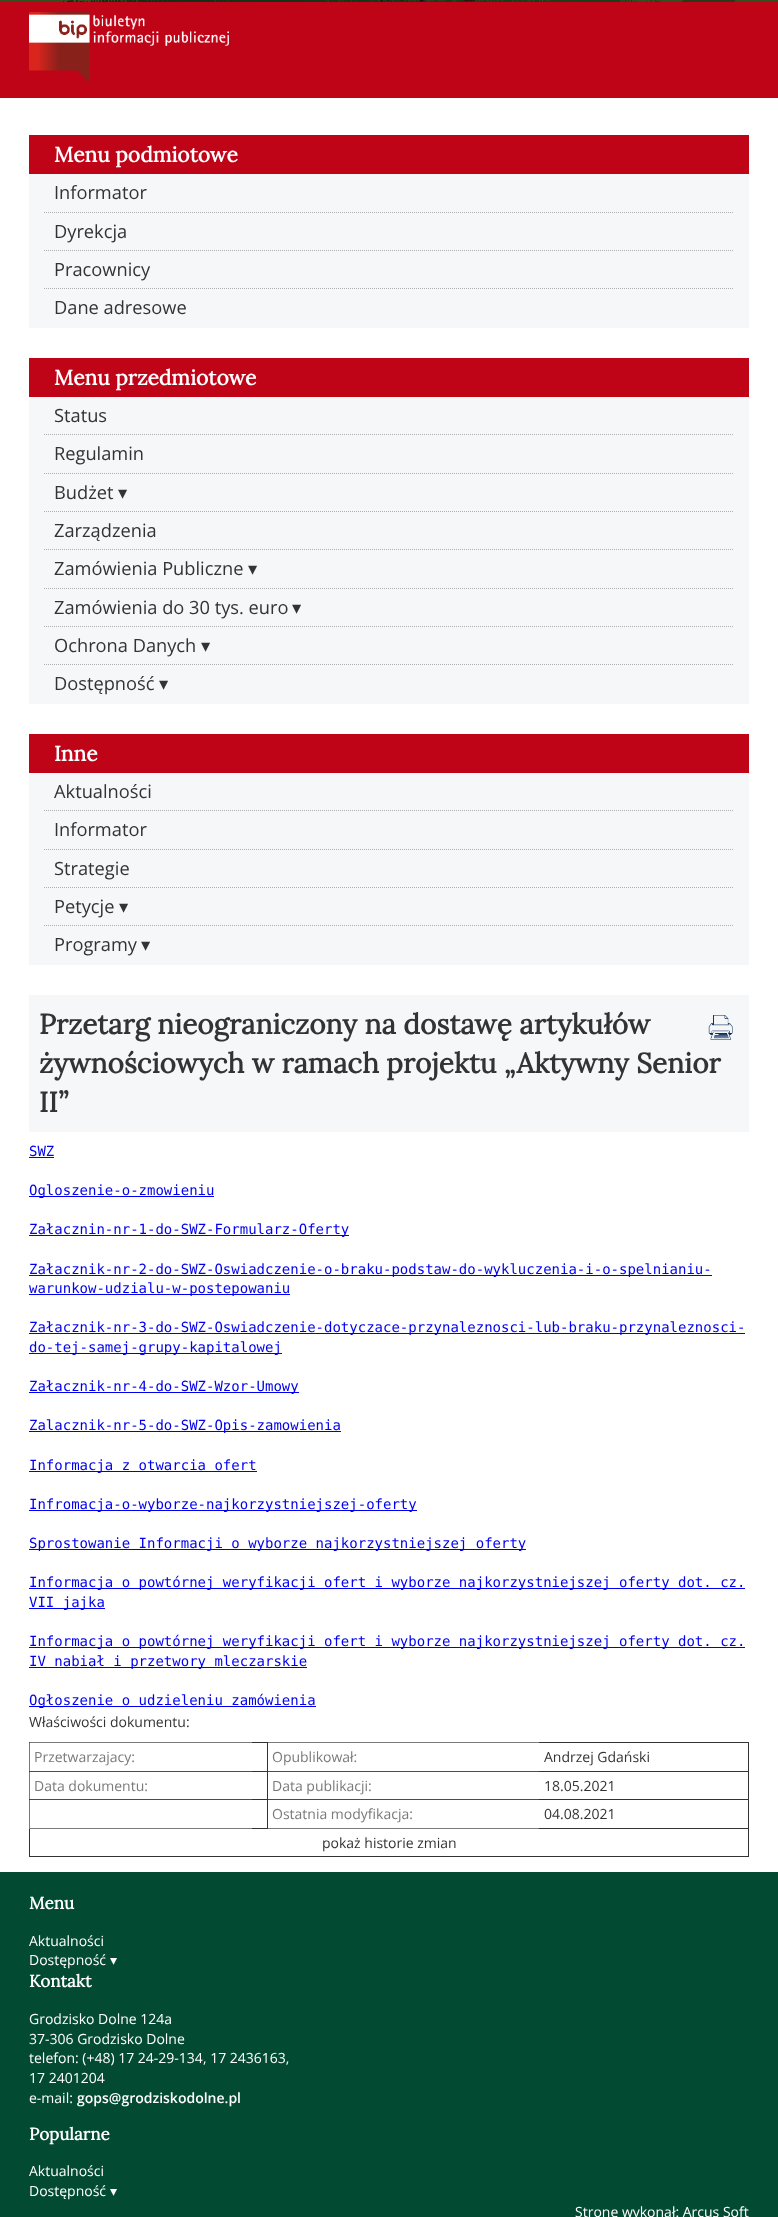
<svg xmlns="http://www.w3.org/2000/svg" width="778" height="2217">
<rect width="100%" height="100%" fill="#fff"/>
<rect x="29" y="1742" width="1" height="58" fill="#7a7a7a"/>
<rect x="29" y="1742" width="224" height="1" fill="#7a7a7a"/>
<rect x="29" y="1742" width="1" height="1" fill="#4c4c4c"/>
<rect x="267" y="1742" width="273" height="1" fill="#7a7a7a"/>
<rect x="29" y="1771" width="224" height="1" fill="#4c4c4c"/>
<rect x="29" y="1771" width="1" height="1" fill="#363636"/>
<rect x="267" y="1771" width="273" height="1" fill="#4c4c4c"/>
<rect x="29" y="1828" width="224" height="1" fill="#7a7a7a"/>
<rect x="29" y="1799" width="224" height="1" fill="#4c4c4c"/>
<rect x="267" y="1828" width="273" height="1" fill="#7a7a7a"/>
<rect x="267" y="1799" width="273" height="1" fill="#4c4c4c"/>
<image x="0" y="0" width="778" height="2" href="media/1.png"/>
<rect y="2" width="778" height="96" fill="#c00418"/>
<image x="29" y="12" width="200" height="71" href="media/2.png"/>
<rect x="29" y="135" width="720" height="39" fill="#c00418"/>
<text x="54" y="162" style="font-family:Lora;font-size:21px;font-weight:bold;fill:#fff">Menu podmiotowe</text>
<rect x="29" y="174" width="720" height="154" fill="#f6f7f8"/>
<path d="M44 212.5h690" fill="none" stroke="#afafaf" stroke-dasharray="1 1"/>
<text x="54" y="199" style="font-family:Open Sans;font-size:18.25px;fill:#333">Informator</text>
<path d="M44 250.5h690" fill="none" stroke="#afafaf" stroke-dasharray="1 1"/>
<text x="54" y="238" style="font-family:Open Sans;font-size:18.25px;fill:#333">Dyrekcja</text>
<path d="M44 288.5h690" fill="none" stroke="#afafaf" stroke-dasharray="1 1"/>
<text x="54" y="276" style="font-family:Open Sans;font-size:18.25px;fill:#333">Pracownicy</text>
<text x="54" y="314" style="font-family:Open Sans;font-size:18.25px;fill:#333">Dane adresowe</text>
<rect x="29" y="358" width="720" height="39" fill="#c00418"/>
<text x="54" y="385" style="font-family:Lora;font-size:21px;font-weight:bold;fill:#fff">Menu przedmiotowe</text>
<rect x="29" y="397" width="720" height="307" fill="#f6f7f8"/>
<path d="M44 434.5h690" fill="none" stroke="#afafaf" stroke-dasharray="1 1"/>
<text x="54" y="422" style="font-family:Open Sans;font-size:18.25px;fill:#333">Status</text>
<path d="M44 473.5h690" fill="none" stroke="#afafaf" stroke-dasharray="1 1"/>
<text x="54" y="460" style="font-family:Open Sans;font-size:18.25px;fill:#333">Regulamin</text>
<path d="M44 511.5h690" fill="none" stroke="#afafaf" stroke-dasharray="1 1"/>
<text x="54" y="499" style="font-family:Open Sans;font-size:18.25px;fill:#333">Budżet</text>
<text x="118" y="499" style="font-family:DejaVu Sans;font-size:18.25px;fill:#333">▾</text>
<path d="M44 549.5h690" fill="none" stroke="#afafaf" stroke-dasharray="1 1"/>
<text x="54" y="537" style="font-family:Open Sans;font-size:18.25px;fill:#333">Zarządzenia</text>
<path d="M44 588.5h690" fill="none" stroke="#afafaf" stroke-dasharray="1 1"/>
<text x="54" y="575" style="font-family:Open Sans;font-size:18.25px;fill:#333">Zamówienia Publiczne</text>
<text x="248" y="575" style="font-family:DejaVu Sans;font-size:18.25px;fill:#333">▾</text>
<path d="M44 626.5h690" fill="none" stroke="#afafaf" stroke-dasharray="1 1"/>
<text x="54" y="614" style="font-family:Open Sans;font-size:18.25px;fill:#333">Zamówienia do 30 tys. euro</text>
<text x="292" y="614" style="font-family:DejaVu Sans;font-size:18.25px;fill:#333">▾</text>
<path d="M44 664.5h690" fill="none" stroke="#afafaf" stroke-dasharray="1 1"/>
<text x="54" y="652" style="font-family:Open Sans;font-size:18.25px;fill:#333">Ochrona Danych</text>
<text x="201" y="652" style="font-family:DejaVu Sans;font-size:18.25px;fill:#333">▾</text>
<text x="54" y="690" style="font-family:Open Sans;font-size:18.25px;fill:#333">Dostępność</text>
<text x="159" y="690" style="font-family:DejaVu Sans;font-size:18.25px;fill:#333">▾</text>
<rect x="29" y="734" width="720" height="39" fill="#c00418"/>
<text x="54" y="761" style="font-family:Lora;font-size:21px;font-weight:bold;fill:#fff">Inne</text>
<rect x="29" y="773" width="720" height="192" fill="#f6f7f8"/>
<path d="M44 810.5h690" fill="none" stroke="#afafaf" stroke-dasharray="1 1"/>
<text x="54" y="798" style="font-family:Open Sans;font-size:18.25px;fill:#333">Aktualności</text>
<path d="M44 849.5h690" fill="none" stroke="#afafaf" stroke-dasharray="1 1"/>
<text x="54" y="836" style="font-family:Open Sans;font-size:18.25px;fill:#333">Informator</text>
<path d="M44 887.5h690" fill="none" stroke="#afafaf" stroke-dasharray="1 1"/>
<text x="54" y="875" style="font-family:Open Sans;font-size:18.25px;fill:#333">Strategie</text>
<path d="M44 925.5h690" fill="none" stroke="#afafaf" stroke-dasharray="1 1"/>
<text x="54" y="913" style="font-family:Open Sans;font-size:18.25px;fill:#333">Petycje</text>
<text x="119" y="913" style="font-family:DejaVu Sans;font-size:18.25px;fill:#333">▾</text>
<text x="54" y="951" style="font-family:Open Sans;font-size:18.25px;fill:#333">Programy</text>
<text x="141" y="951" style="font-family:DejaVu Sans;font-size:18.25px;fill:#333">▾</text>
<rect x="29" y="995" width="720" height="137" fill="#f6f7f8"/>
<text x="39" y="1034" style="font-family:Lora;font-size:28px;font-weight:bold;fill:#333">Przetarg nieograniczony na dostawę artykułów</text>
<text x="39" y="1073" style="font-family:Lora;font-size:28px;font-weight:bold;fill:#333">żywnościowych w ramach projektu „Aktywny Senior</text>
<text x="39" y="1112" style="font-family:Lora;font-size:28px;font-weight:bold;fill:#333">II”</text>
<text x="29" y="1156" style="font-family:DejaVu Sans Mono;font-size:14px;fill:#00e">SWZ</text>
<rect x="29" y="1157" width="25" height="1" fill="#00e"/>
<rect x="29" y="1196" width="185" height="1" fill="#00e"/>
<text x="29" y="1195" style="font-family:DejaVu Sans Mono;font-size:14px;fill:#00e">Ogloszenie-o-zmowieniu</text>
<rect x="29" y="1235" width="320" height="1" fill="#00e"/>
<text x="29" y="1234" style="font-family:DejaVu Sans Mono;font-size:14px;fill:#00e">Załacznin-nr-1-do-SWZ-Formularz-Oferty</text>
<rect x="29" y="1275" width="683" height="1" fill="#00e"/>
<text x="29" y="1274" style="font-family:DejaVu Sans Mono;font-size:14px;fill:#00e">Załacznik-nr-2-do-SWZ-Oswiadczenie-o-braku-podstaw-do-wykluczenia-i-o-spelnianiu-</text>
<rect x="29" y="1294" width="261" height="1" fill="#00e"/>
<text x="29" y="1293" style="font-family:DejaVu Sans Mono;font-size:14px;fill:#00e">warunkow-udzialu-w-postepowaniu</text>
<rect x="29" y="1333" width="716" height="1" fill="#00e"/>
<text x="29" y="1332" style="font-family:DejaVu Sans Mono;font-size:14px;fill:#00e">Załacznik-nr-3-do-SWZ-Oswiadczenie-dotyczace-przynaleznosci-lub-braku-przynaleznosci-</text>
<rect x="29" y="1353" width="253" height="1" fill="#00e"/>
<text x="29" y="1352" style="font-family:DejaVu Sans Mono;font-size:14px;fill:#00e">do-tej-samej-grupy-kapitalowej</text>
<rect x="29" y="1392" width="270" height="1" fill="#00e"/>
<text x="29" y="1391" style="font-family:DejaVu Sans Mono;font-size:14px;fill:#00e">Załacznik-nr-4-do-SWZ-Wzor-Umowy</text>
<rect x="29" y="1431" width="312" height="1" fill="#00e"/>
<text x="29" y="1430" style="font-family:DejaVu Sans Mono;font-size:14px;fill:#00e">Zalacznik-nr-5-do-SWZ-Opis-zamowienia</text>
<rect x="29" y="1471" width="228" height="1" fill="#00e"/>
<text x="29" y="1470" style="font-family:DejaVu Sans Mono;font-size:14px;fill:#00e">Informacja z otwarcia ofert</text>
<rect x="29" y="1510" width="388" height="1" fill="#00e"/>
<text x="29" y="1509" style="font-family:DejaVu Sans Mono;font-size:14px;fill:#00e">Infromacja-o-wyborze-najkorzystniejszej-oferty</text>
<rect x="29" y="1549" width="497" height="1" fill="#00e"/>
<text x="29" y="1548" style="font-family:DejaVu Sans Mono;font-size:14px;fill:#00e">Sprostowanie Informacji o wyborze najkorzystniejszej oferty</text>
<rect x="29" y="1588" width="716" height="1" fill="#00e"/>
<text x="29" y="1587" style="font-family:DejaVu Sans Mono;font-size:14px;fill:#00e">Informacja o powtórnej weryfikacji ofert i wyborze najkorzystniejszej oferty dot. cz.</text>
<rect x="29" y="1608" width="76" height="1" fill="#00e"/>
<text x="29" y="1607" style="font-family:DejaVu Sans Mono;font-size:14px;fill:#00e">VII jajka</text>
<rect x="29" y="1647" width="716" height="1" fill="#00e"/>
<text x="29" y="1646" style="font-family:DejaVu Sans Mono;font-size:14px;fill:#00e">Informacja o powtórnej weryfikacji ofert i wyborze najkorzystniejszej oferty dot. cz.</text>
<rect x="29" y="1667" width="278" height="1" fill="#00e"/>
<text x="29" y="1666" style="font-family:DejaVu Sans Mono;font-size:14px;fill:#00e">IV nabiał i przetwory mleczarskie</text>
<rect x="29" y="1706" width="287" height="1" fill="#00e"/>
<text x="29" y="1705" style="font-family:DejaVu Sans Mono;font-size:14px;fill:#00e">Ogłoszenie o udzieleniu zamówienia</text>
<image x="708" y="1015" width="25" height="25" href="media/3.png"/>
<text x="29" y="1727" style="font-family:Open Sans;font-size:14px;fill:#333">Właściwości dokumentu:</text>
<text x="34" y="1762" style="font-family:Open Sans;font-size:14px;fill:#7a7a7a">Przetwarzajacy:</text>
<rect x="252" y="1742" width="16" height="1" fill="#333"/>
<rect x="252" y="1771" width="16" height="1" fill="#333"/>
<rect x="252" y="1799" width="16" height="1" fill="#333"/>
<rect x="267" y="1799" width="1" height="30" fill="#333"/>
<rect x="267" y="1771" width="1" height="29" fill="#333"/>
<rect x="267" y="1742" width="1" height="30" fill="#333"/>
<text x="272" y="1762" style="font-family:Open Sans;font-size:14px;fill:#7a7a7a">Opublikował:</text>
<rect x="539" y="1742" width="210" height="1" fill="#333"/>
<rect x="539" y="1771" width="210" height="1" fill="#333"/>
<rect x="539" y="1799" width="210" height="1" fill="#333"/>
<rect x="748" y="1799" width="1" height="58" fill="#333"/>
<rect x="748" y="1771" width="1" height="29" fill="#333"/>
<rect x="748" y="1742" width="1" height="30" fill="#333"/>
<text x="544" y="1762" style="font-family:Open Sans;font-size:14px;fill:#333">Andrzej Gdański</text>
<text x="34" y="1791" style="font-family:Open Sans;font-size:14px;fill:#7a7a7a">Data dokumentu:</text>
<text x="272" y="1791" style="font-family:Open Sans;font-size:14px;fill:#7a7a7a">Data publikacji:</text>
<text x="544" y="1791" style="font-family:Open Sans;font-size:14px;fill:#333">18.05.2021</text>
<rect x="29" y="1799" width="1" height="30" fill="#7a7a7a"/>
<rect x="29" y="1799" width="1" height="1" fill="#3c3c3c"/>
<rect x="252" y="1828" width="16" height="1" fill="#333"/>
<text x="272" y="1819" style="font-family:Open Sans;font-size:14px;fill:#7a7a7a">Ostatnia modyfikacja:</text>
<rect x="539" y="1828" width="210" height="1" fill="#333"/>
<text x="544" y="1819" style="font-family:Open Sans;font-size:14px;fill:#333">04.08.2021</text>
<rect x="29" y="1829" width="1" height="28" fill="#333"/>
<rect x="30" y="1856" width="718" height="1" fill="#333"/>
<text x="322" y="1848" style="font-family:Open Sans;font-size:14px;fill:#333">pokaż historie zmian</text>
<rect y="1872" width="778" height="345" fill="#024a32"/>
<text x="29" y="1909" style="font-family:Lora;font-size:17px;font-weight:bold;fill:#fff">Menu</text>
<text x="29" y="1946" style="font-family:Open Sans;font-size:14px;fill:#fff">Aktualności</text>
<text x="29" y="1965" style="font-family:Open Sans;font-size:14px;fill:#fff">Dostępność</text>
<text x="110" y="1965" style="font-family:DejaVu Sans;font-size:14px;fill:#fff">▾</text>
<text x="29" y="1987" style="font-family:Lora;font-size:17px;font-weight:bold;fill:#fff">Kontakt</text>
<text x="29" y="2024" style="font-family:Open Sans;font-size:14px;fill:#fff">Grodzisko Dolne 124a</text>
<text x="29" y="2044" style="font-family:Open Sans;font-size:14px;fill:#fff">37-306 Grodzisko Dolne</text>
<text x="29" y="2063" style="font-family:Open Sans;font-size:14px;fill:#fff">telefon: (+48) 17 24-29-134, 17 2436163,</text>
<text x="29" y="2083" style="font-family:Open Sans;font-size:14px;fill:#fff">17 2401204</text>
<text x="29" y="2103" style="font-family:Open Sans;font-size:14px;fill:#fff">e-mail:</text>
<text x="77" y="2103" style="font-family:Open Sans;font-size:14px;font-weight:600;fill:#fff">gops@grodziskodolne.pl</text>
<text x="29" y="2140" style="font-family:Lora;font-size:17px;font-weight:bold;fill:#fff">Popularne</text>
<text x="29" y="2176" style="font-family:Open Sans;font-size:14px;fill:#fff">Aktualności</text>
<text x="29" y="2196" style="font-family:Open Sans;font-size:14px;fill:#fff">Dostępność</text>
<text x="110" y="2196" style="font-family:DejaVu Sans;font-size:14px;fill:#fff">▾</text>
<text x="575" y="2217" style="font-family:Open Sans;font-size:14px;fill:#fff">Stronę wykonał: Arcus Soft</text>
</svg>
